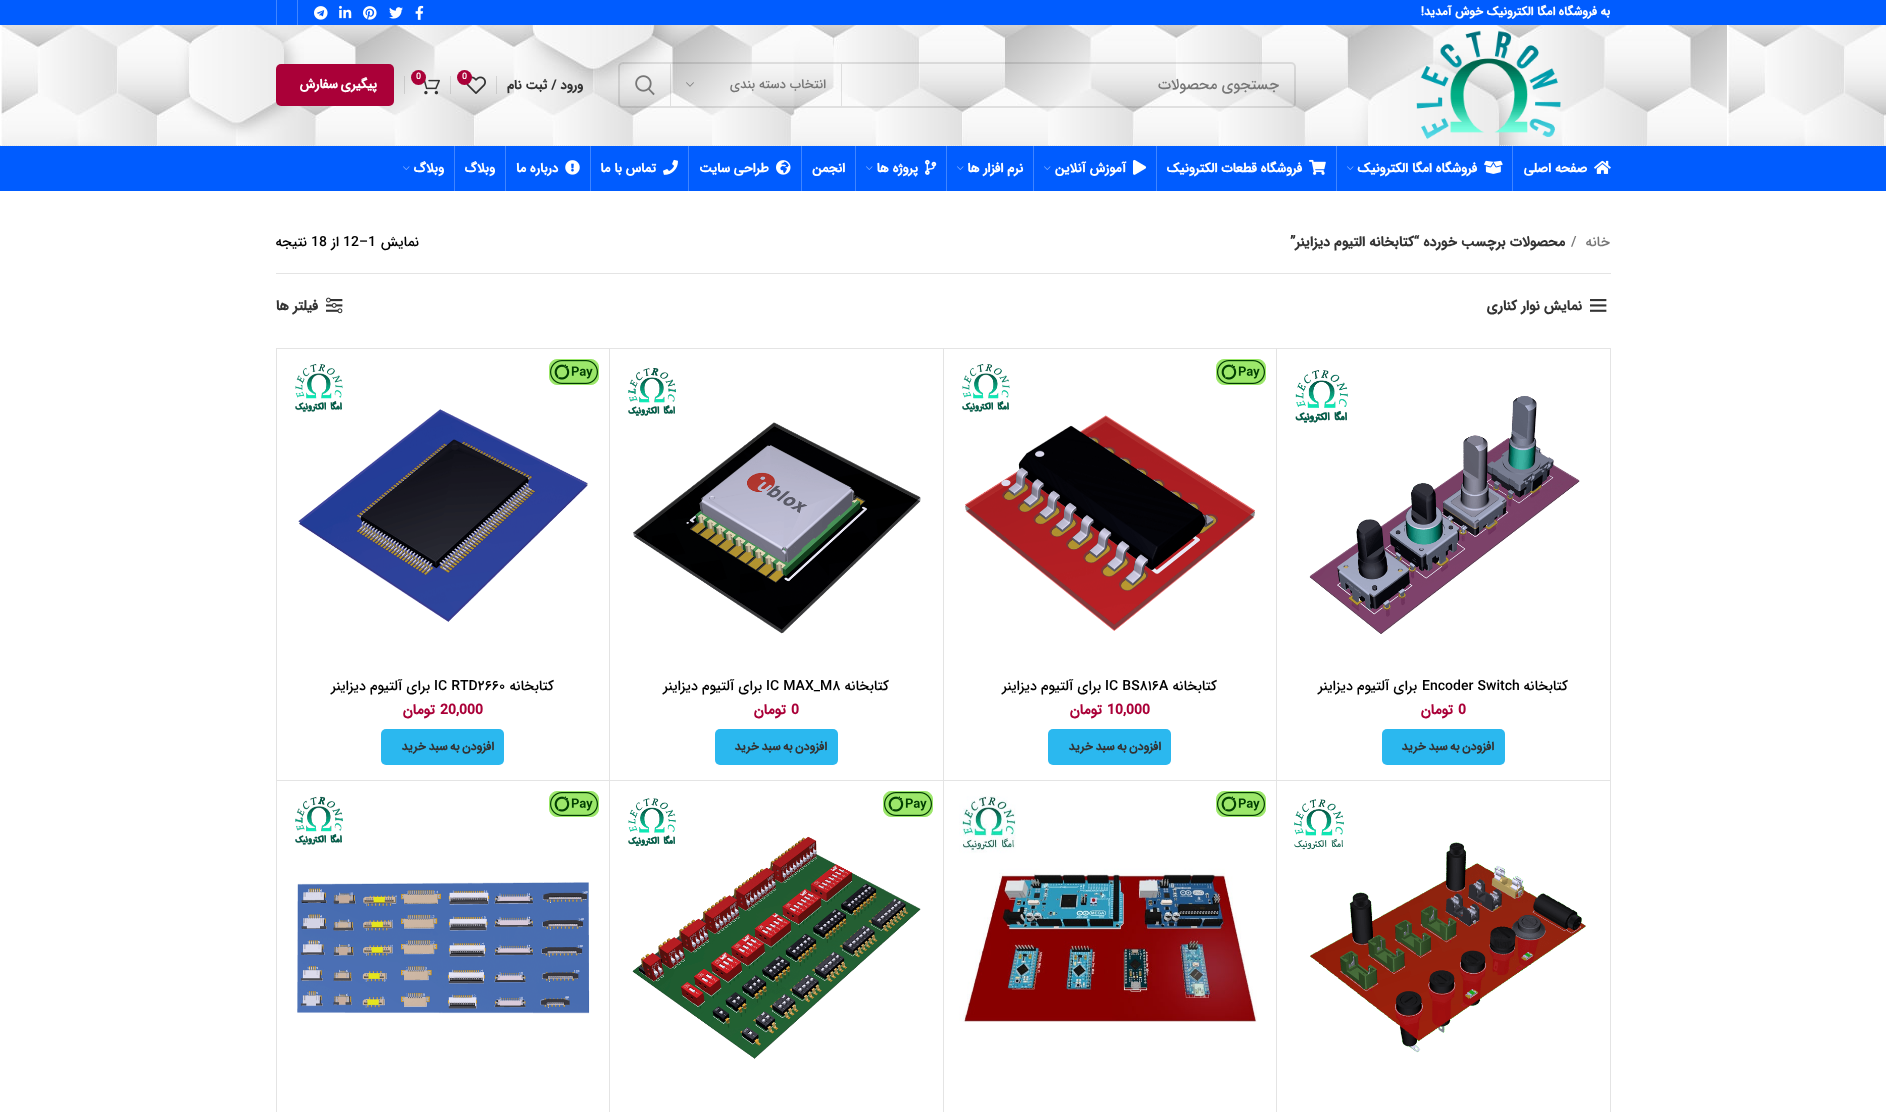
<svg xmlns="http://www.w3.org/2000/svg" width="1886" height="1112">
<rect width="100%" height="100%" fill="#fff"/>
<rect width="1886" height="25" fill="#005cff"/>
<text x="1610" y="15" style="font-family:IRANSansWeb;font-size:12px;font-weight:bold;direction:rtl;fill:#fff">به فروشگاه امگا الکترونیک خوش آمدید!</text>
<image x="415" y="5" width="9" height="15" href="media/1.png"/>
<image x="389" y="7" width="14" height="12" href="media/2.png"/>
<image x="363" y="6" width="14" height="14" href="media/3.png"/>
<image x="339" y="5" width="13" height="14" href="media/4.png"/>
<image x="314" y="6" width="14" height="14" href="media/5.png"/>
<rect x="297" width="1" height="25" fill="#4085ff"/>
<rect x="276" width="1" height="25" fill="#4085ff"/>
<image x="1" y="25" width="1885" height="121" href="media/6.png"/>
<path d="M0 145.5h1886" fill="none" stroke="#e8e8e8" stroke-dasharray="1 1"/>
<image x="1416" y="30" width="145" height="110" href="media/7.png"/>
<rect x="619" y="63" width="676" height="44" rx="4" fill="none" stroke="#0000001a" stroke-width="2"/>
<text x="1279" y="89" style="font-family:IRANSansWeb;font-size:15px;font-weight:500;direction:rtl;fill:#777">جستجوی محصولات</text>
<rect x="841" y="64" width="1" height="42" fill="#0000001a"/>
<rect x="670" y="64" width="1" height="42" fill="#0000001a"/>
<text x="826" y="88" style="font-family:IRANSansWeb;font-size:13px;font-weight:500;direction:rtl;fill:#777">انتخاب دسته بندی</text>
<image x="686" y="82" width="8" height="5" href="media/8.png"/>
<image x="635" y="75" width="20" height="21" href="media/9.png"/>
<text x="583" y="89" style="font-family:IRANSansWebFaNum;font-size:13px;font-weight:bold;direction:rtl;fill:#333">ورود / ثبت نام</text>
<rect x="496" y="76" width="1" height="18" fill="#0000001c"/>
<image x="466" y="76" width="20" height="18" href="media/10.png"/>
<circle cx="464.5" cy="77.5" r="7.5" fill="#aa0038"/>
<text x="462" y="79" style="font-family:IRANSansWeb;font-size:9px;font-weight:500;fill:#fff">0</text>
<rect x="450" y="76" width="1" height="18" fill="#0000001c"/>
<image x="424" y="79" width="16" height="16" href="media/11.png"/>
<circle cx="418.5" cy="77.5" r="7.5" fill="#aa0038"/>
<text x="416" y="79" style="font-family:IRANSansWeb;font-size:9px;font-weight:500;fill:#fff">0</text>
<rect x="404" y="76" width="1" height="18" fill="#0000001c"/>
<rect x="276" y="64" width="118" height="42" rx="5" fill="#aa0038"/>
<text x="377" y="88" word-spacing="-1" style="font-family:IRANSansWeb;font-size:13px;font-weight:bold;letter-spacing:0.25px;direction:rtl;fill:#fff">پیگیری سفارش</text>
<rect y="146" width="1886" height="45" fill="#005cff"/>
<image x="1594" y="160" width="17" height="14" href="media/12.png"/>
<text x="1587" y="172" style="font-family:IRANSansWebFaNum;font-size:13px;font-weight:bold;direction:rtl;fill:#fff">صفحه اصلی</text>
<rect x="1512" y="146" width="1" height="45" fill="#4085ff"/>
<image x="1484" y="160" width="19" height="14" href="media/13.png"/>
<text x="1477" y="172" style="font-family:IRANSansWebFaNum;font-size:13px;font-weight:bold;direction:rtl;fill:#fff">فروشگاه امگا الکترونیک</text>
<image x="1347" y="166" width="7" height="4" href="media/14.png"/>
<rect x="1336" y="146" width="1" height="45" fill="#4085ff"/>
<image x="1309" y="159" width="17" height="16" href="media/15.png"/>
<text x="1302" y="172" style="font-family:IRANSansWebFaNum;font-size:13px;font-weight:bold;direction:rtl;fill:#fff">فروشگاه قطعات الکترونیک</text>
<rect x="1156" y="146" width="1" height="45" fill="#4085ff"/>
<image x="1133" y="159" width="14" height="16" href="media/16.png"/>
<text x="1126" y="172" style="font-family:IRANSansWebFaNum;font-size:13px;font-weight:bold;direction:rtl;fill:#fff">آموزش آنلاین</text>
<image x="1044" y="166" width="7" height="4" href="media/14.png"/>
<rect x="1033" y="146" width="1" height="45" fill="#4085ff"/>
<text x="1023" y="172" style="font-family:IRANSansWebFaNum;font-size:13px;font-weight:bold;direction:rtl;fill:#fff">نرم افزار ها</text>
<image x="957" y="166" width="7" height="4" href="media/14.png"/>
<rect x="946" y="146" width="1" height="45" fill="#4085ff"/>
<image x="925" y="159" width="12" height="16" href="media/17.png"/>
<text x="918" y="172" style="font-family:IRANSansWebFaNum;font-size:13px;font-weight:bold;direction:rtl;fill:#fff">پروژه ها</text>
<image x="866" y="166" width="7" height="4" href="media/14.png"/>
<rect x="855" y="146" width="1" height="45" fill="#4085ff"/>
<text x="845" y="172" style="font-family:IRANSansWebFaNum;font-size:13px;font-weight:bold;direction:rtl;fill:#fff">انجمن</text>
<rect x="801" y="146" width="1" height="45" fill="#4085ff"/>
<image x="776" y="160" width="15" height="15" href="media/18.png"/>
<text x="769" y="172" style="font-family:IRANSansWebFaNum;font-size:13px;font-weight:bold;direction:rtl;fill:#fff">طراحی سایت</text>
<rect x="688" y="146" width="1" height="45" fill="#4085ff"/>
<image x="663" y="159" width="15" height="16" href="media/19.png"/>
<text x="656" y="172" style="font-family:IRANSansWebFaNum;font-size:13px;font-weight:bold;direction:rtl;fill:#fff">تماس با ما</text>
<rect x="590" y="146" width="1" height="45" fill="#4085ff"/>
<image x="565" y="160" width="15" height="15" href="media/20.png"/>
<text x="558" y="172" style="font-family:IRANSansWebFaNum;font-size:13px;font-weight:bold;direction:rtl;fill:#fff">درباره ما</text>
<rect x="505" y="146" width="1" height="45" fill="#4085ff"/>
<text x="495" y="172" style="font-family:IRANSansWebFaNum;font-size:13px;font-weight:bold;direction:rtl;fill:#fff">وبلاگ</text>
<rect x="454" y="146" width="1" height="45" fill="#4085ff"/>
<text x="444" y="172" style="font-family:IRANSansWebFaNum;font-size:13px;font-weight:bold;direction:rtl;fill:#fff">وبلاگ</text>
<image x="403" y="166" width="7" height="4" href="media/14.png"/>
<rect x="276" y="273" width="1335" height="1" fill="#e4e4e4"/>
<text x="1610" y="246" style="font-family:IRANSansWeb;font-size:14px;font-weight:500;direction:rtl;fill:#777">خانه</text>
<text x="1571" y="246" style="font-family:IRANSansWeb;font-size:14px;font-weight:500;fill:#777">/</text>
<text x="1565" y="246" style="font-family:IRANSansWeb;font-size:14px;font-weight:bold;direction:rtl;fill:#333">محصولات برچسب خورده “کتابخانه التیوم دیزاینر”</text>
<text x="419" y="246" style="font-family:IRANSansWeb;font-size:14px;font-weight:500;direction:rtl;fill:#000">نمایش</text>
<text x="343" y="246" style="font-family:IRANSansWeb;font-size:14px;font-weight:500;fill:#000">12–1</text>
<text x="339" y="246" style="font-family:IRANSansWeb;font-size:14px;font-weight:500;direction:rtl;fill:#000">از</text>
<text x="311" y="246" style="font-family:IRANSansWeb;font-size:14px;font-weight:500;fill:#000">18</text>
<text x="307" y="246" style="font-family:IRANSansWeb;font-size:14px;font-weight:500;direction:rtl;fill:#000">نتیجه</text>
<image x="1590" y="299" width="17" height="13" href="media/21.png"/>
<text x="1582" y="310" style="font-family:IRANSansWeb;font-size:14px;font-weight:bold;direction:rtl;fill:#333">نمایش نوار کناری</text>
<image x="326" y="297" width="17" height="17" href="media/22.png"/>
<text x="318" y="310" style="font-family:IRANSansWeb;font-size:14px;font-weight:bold;direction:rtl;fill:#333">فیلتر ها</text>
<rect x="1610" y="348" width="1" height="764" fill="#e4e4e4"/>
<path d="M1276 348h334v1h-333z" fill="#e4e4e4"/>
<path d="M1610 781h-334l1-1h333z" fill="#e4e4e4"/>
<path d="M1276 781v-433l1 1v431z" fill="#0000001c"/>
<image x="1295" y="370" width="285" height="264" href="media/23.png"/>
<text x="1568" y="690" style="font-family:IRANSansWebFaNum;font-size:14px;font-weight:500;direction:rtl;fill:#000">کتابخانه</text>
<text x="1422" y="690" style="font-family:IRANSansWebFaNum;font-size:14px;font-weight:500;fill:#000">Encoder Switch</text>
<text x="1417" y="690" style="font-family:IRANSansWebFaNum;font-size:14px;font-weight:500;direction:rtl;fill:#000">برای آلتیوم دیزاینر</text>
<text x="1458" y="714" style="font-family:IRANSansWeb;font-size:14px;font-weight:bold;fill:#aa0038">0</text>
<text x="1453" y="714" style="font-family:IRANSansWeb;font-size:14px;font-weight:bold;direction:rtl;fill:#aa0038">تومان</text>
<rect x="1382" y="729" width="123" height="36" rx="5" fill="#2bb8ef"/>
<text x="1494" y="750" word-spacing="-1" style="font-family:IRANSansWeb;font-size:12px;font-weight:bold;letter-spacing:0.25px;direction:rtl;fill:#333">افزودن به سبد خرید</text>
<path d="M943 348h333v1h-332z" fill="#e4e4e4"/>
<path d="M1276 781h-333l1-1h332z" fill="#e4e4e4"/>
<path d="M943 781v-433l1 1v431z" fill="#0000001c"/>
<image x="962" y="364" width="293" height="267" href="media/25.png"/>
<rect x="1216.5" y="359.5" width="49" height="25" rx="7.5" fill="#9ce76a" stroke="#9ce76a"/>
<image x="1217" y="360" width="48" height="24" href="media/24.png"/>
<text x="1217" y="690" style="font-family:IRANSansWebFaNum;font-size:14px;font-weight:500;direction:rtl;fill:#000">کتابخانه</text>
<text x="1105" y="690" style="font-family:IRANSansWebFaNum;font-size:14px;font-weight:500;fill:#000">IC BS816A</text>
<text x="1101" y="690" style="font-family:IRANSansWebFaNum;font-size:14px;font-weight:500;direction:rtl;fill:#000">برای آلتیوم دیزاینر</text>
<text x="1107" y="714" style="font-family:IRANSansWeb;font-size:14px;font-weight:bold;fill:#aa0038">10,000</text>
<text x="1102" y="714" style="font-family:IRANSansWeb;font-size:14px;font-weight:bold;direction:rtl;fill:#aa0038">تومان</text>
<rect x="1048" y="729" width="123" height="36" rx="5" fill="#2bb8ef"/>
<text x="1161" y="750" word-spacing="-1" style="font-family:IRANSansWeb;font-size:12px;font-weight:bold;letter-spacing:0.25px;direction:rtl;fill:#333">افزودن به سبد خرید</text>
<path d="M609 348h334v1h-333z" fill="#e4e4e4"/>
<path d="M943 781h-334l1-1h333z" fill="#e4e4e4"/>
<path d="M609 781v-433l1 1v431z" fill="#0000001c"/>
<image x="628" y="368" width="293" height="266" href="media/26.png"/>
<text x="889" y="690" style="font-family:IRANSansWebFaNum;font-size:14px;font-weight:500;direction:rtl;fill:#000">کتابخانه</text>
<text x="766" y="690" style="font-family:IRANSansWebFaNum;font-size:14px;font-weight:500;fill:#000">IC MAX_M8</text>
<text x="762" y="690" style="font-family:IRANSansWebFaNum;font-size:14px;font-weight:500;direction:rtl;fill:#000">برای آلتیوم دیزاینر</text>
<text x="791" y="714" style="font-family:IRANSansWeb;font-size:14px;font-weight:bold;fill:#aa0038">0</text>
<text x="786" y="714" style="font-family:IRANSansWeb;font-size:14px;font-weight:bold;direction:rtl;fill:#aa0038">تومان</text>
<rect x="715" y="729" width="123" height="36" rx="5" fill="#2bb8ef"/>
<text x="827" y="750" word-spacing="-1" style="font-family:IRANSansWeb;font-size:12px;font-weight:bold;letter-spacing:0.25px;direction:rtl;fill:#333">افزودن به سبد خرید</text>
<path d="M276 348h333v1h-332z" fill="#e4e4e4"/>
<path d="M609 781h-333l1-1h332z" fill="#e4e4e4"/>
<path d="M276 781v-433l1 1v431z" fill="#0000001c"/>
<image x="295" y="364" width="293" height="258" href="media/27.png"/>
<rect x="549.5" y="359.5" width="49" height="25" rx="7.5" fill="#9ce76a" stroke="#9ce76a"/>
<image x="550" y="360" width="48" height="24" href="media/24.png"/>
<text x="554" y="690" style="font-family:IRANSansWebFaNum;font-size:14px;font-weight:500;direction:rtl;fill:#000">کتابخانه</text>
<text x="434" y="690" style="font-family:IRANSansWebFaNum;font-size:14px;font-weight:500;fill:#000">IC RTD2660</text>
<text x="430" y="690" style="font-family:IRANSansWebFaNum;font-size:14px;font-weight:500;direction:rtl;fill:#000">برای آلتیوم دیزاینر</text>
<text x="440" y="714" style="font-family:IRANSansWeb;font-size:14px;font-weight:bold;fill:#aa0038">20,000</text>
<text x="435" y="714" style="font-family:IRANSansWeb;font-size:14px;font-weight:bold;direction:rtl;fill:#aa0038">تومان</text>
<rect x="381" y="729" width="123" height="36" rx="5" fill="#2bb8ef"/>
<text x="494" y="750" word-spacing="-1" style="font-family:IRANSansWeb;font-size:12px;font-weight:bold;letter-spacing:0.25px;direction:rtl;fill:#333">افزودن به سبد خرید</text>
<path d="M1276 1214v-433h1v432z" fill="#e4e4e4"/>
<image x="1294" y="799" width="292" height="254" href="media/28.png"/>
<path d="M943 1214v-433h1v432z" fill="#e4e4e4"/>
<image x="959" y="796" width="298" height="226" href="media/29.png"/>
<rect x="1216.5" y="791.5" width="49" height="25" rx="7.5" fill="#9ce76a" stroke="#9ce76a"/>
<image x="1217" y="792" width="48" height="24" href="media/24.png"/>
<path d="M609 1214v-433h1v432z" fill="#e4e4e4"/>
<image x="628" y="798" width="293" height="261" href="media/30.png"/>
<rect x="883.5" y="791.5" width="49" height="25" rx="7.5" fill="#9ce76a" stroke="#9ce76a"/>
<image x="884" y="792" width="48" height="24" href="media/24.png"/>
<path d="M276 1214v-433h1v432z" fill="#e4e4e4"/>
<image x="295" y="796" width="295" height="218" href="media/31.png"/>
<rect x="549.5" y="791.5" width="49" height="25" rx="7.5" fill="#9ce76a" stroke="#9ce76a"/>
<image x="550" y="792" width="48" height="24" href="media/24.png"/>
</svg>
